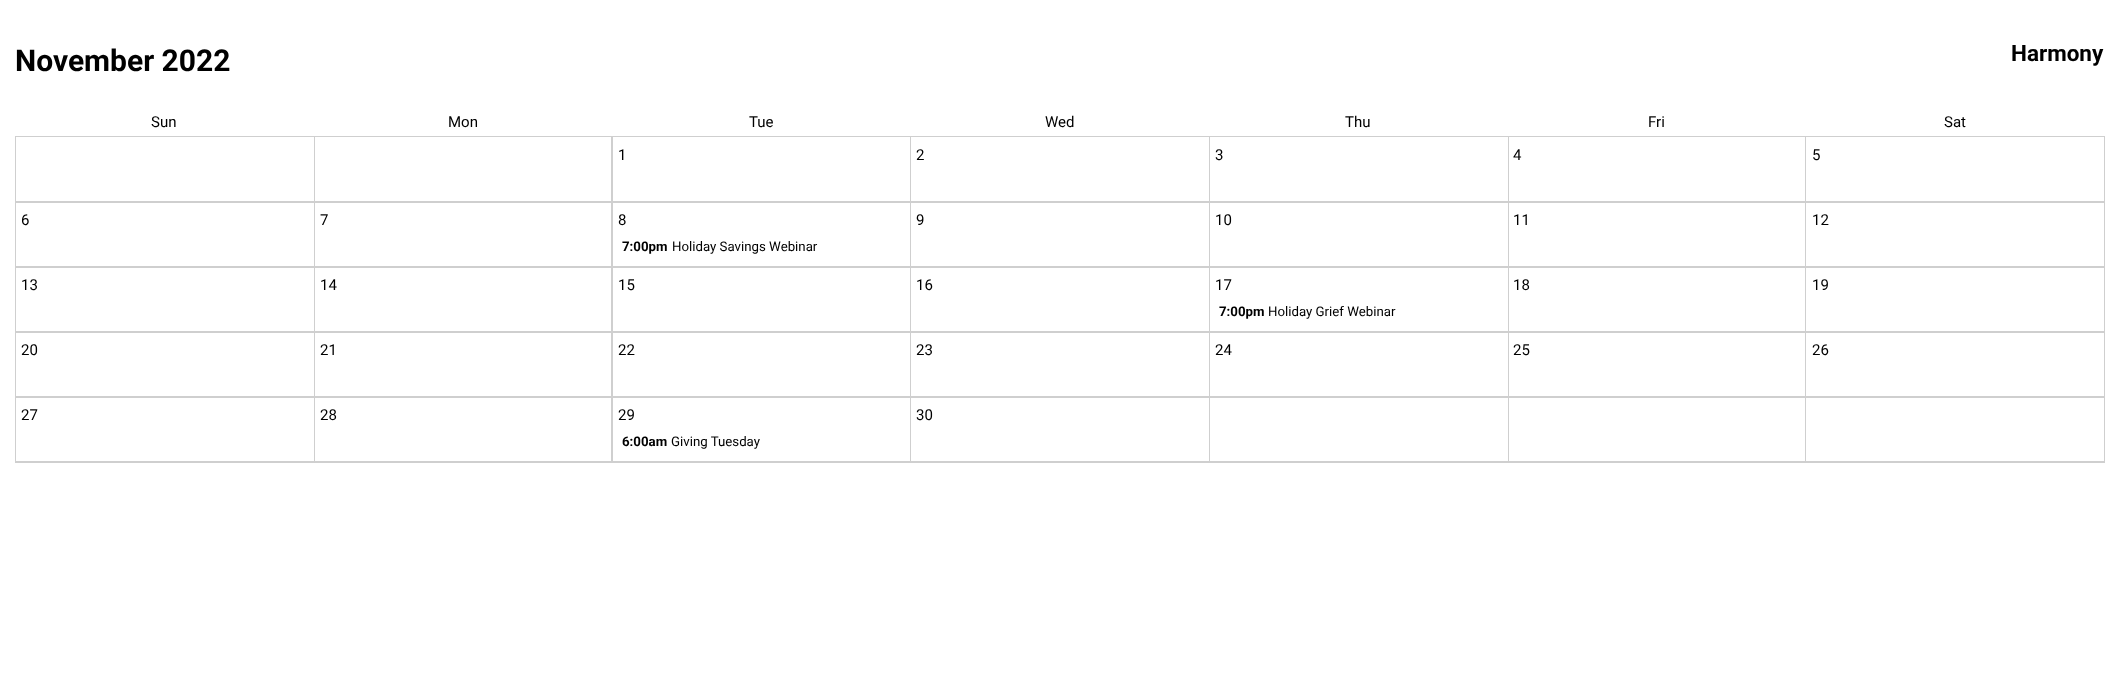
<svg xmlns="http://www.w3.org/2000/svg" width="2118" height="696">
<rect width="100%" height="100%" fill="#fff"/>
<text x="15" y="71" style="font-family:Roboto;font-size:30px;font-weight:bold;fill:#000">November 2022</text>
<text x="2011" y="61" style="font-family:Roboto;font-size:22.5px;font-weight:bold;fill:#000">Harmony</text>
<text x="151" y="127" style="font-family:Roboto;font-size:15px;fill:#000">Sun</text>
<text x="448" y="127" style="font-family:Roboto;font-size:15px;fill:#000">Mon</text>
<text x="749" y="127" style="font-family:Roboto;font-size:15px;fill:#000">Tue</text>
<text x="1045" y="127" style="font-family:Roboto;font-size:15px;fill:#000">Wed</text>
<text x="1345" y="127" style="font-family:Roboto;font-size:15px;fill:#000">Thu</text>
<text x="1648" y="127" style="font-family:Roboto;font-size:15px;fill:#000">Fri</text>
<text x="1944" y="127" style="font-family:Roboto;font-size:15px;fill:#000">Sat</text>
<path d="M16 201v2h299v-65h-1v63z" fill="#cfcfcf"/>
<path d="M15 201v2h299v-65v63z" fill="#cfcfcf"/>
<path d="M16 136h298v65h1v-65z" fill="#cfcfcf"/>
<rect x="15" y="136" width="596" height="1" fill="#cfcfcf"/>
<rect x="15" y="136" width="1" height="130" fill="#cfcfcf"/>
<path d="M315 201v2h298v-65h-2v63z" fill="#cfcfcf"/>
<path d="M315 136h296v65h2v-65z" fill="#cfcfcf"/>
<path d="M613 201v2h298v-65h-1v63z" fill="#cfcfcf"/>
<path d="M613 136h297v65h1v-65z" fill="#cfcfcf"/>
<rect x="611" y="136" width="598" height="1" fill="#cfcfcf"/>
<text x="618" y="160" style="font-family:Roboto;font-size:15px;fill:#000">1</text>
<path d="M911 201v2h299v-65h-1v63z" fill="#cfcfcf"/>
<path d="M911 136h298v65h1v-65z" fill="#cfcfcf"/>
<text x="916" y="160" style="font-family:Roboto;font-size:15px;fill:#000">2</text>
<path d="M1210 201v2h299v-65h-1v63z" fill="#cfcfcf"/>
<path d="M1210 136h298v65h1v-65z" fill="#cfcfcf"/>
<rect x="1209" y="136" width="596" height="1" fill="#cfcfcf"/>
<text x="1215" y="160" style="font-family:Roboto;font-size:15px;fill:#000">3</text>
<path d="M1509 201v2h297v-65h-1v63z" fill="#cfcfcf"/>
<path d="M1509 136h296v65h1v-65z" fill="#cfcfcf"/>
<text x="1513" y="160" style="font-family:Roboto;font-size:15px;fill:#000">4</text>
<path d="M1806 201v2h299v-65h-1v63z" fill="#cfcfcf"/>
<path d="M1806 136h298v65h1v-65z" fill="#cfcfcf"/>
<rect x="1805" y="136" width="299" height="1" fill="#cfcfcf"/>
<text x="1812" y="160" style="font-family:Roboto;font-size:15px;fill:#000">5</text>
<path d="M16 266v2h299v-65h-1v63z" fill="#cfcfcf"/>
<path d="M15 266v2h299v-65v63z" fill="#cfcfcf"/>
<text x="21" y="225" style="font-family:Roboto;font-size:15px;fill:#000">6</text>
<path d="M315 266v2h298v-65h-2v63z" fill="#cfcfcf"/>
<text x="320" y="225" style="font-family:Roboto;font-size:15px;fill:#000">7</text>
<path d="M613 266v2h298v-65h-1v63z" fill="#cfcfcf"/>
<text x="618" y="225" style="font-family:Roboto;font-size:15px;fill:#000">8</text>
<text x="622" y="251" style="font-family:Roboto;font-size:13.25px;font-weight:bold;fill:#000">7:00pm</text>
<text x="672" y="251" style="font-family:Roboto;font-size:13.25px;fill:#000">Holiday Savings Webinar</text>
<path d="M911 266v2h299v-65h-1v63z" fill="#cfcfcf"/>
<text x="916" y="225" style="font-family:Roboto;font-size:15px;fill:#000">9</text>
<path d="M1210 266v2h299v-65h-1v63z" fill="#cfcfcf"/>
<text x="1215" y="225" style="font-family:Roboto;font-size:15px;fill:#000">10</text>
<path d="M1509 266v2h297v-65h-1v63z" fill="#cfcfcf"/>
<text x="1513" y="225" style="font-family:Roboto;font-size:15px;fill:#000">11</text>
<path d="M1806 266v2h299v-65h-1v63z" fill="#cfcfcf"/>
<text x="1812" y="225" style="font-family:Roboto;font-size:15px;fill:#000">12</text>
<path d="M16 331v2h299v-65h-1v63z" fill="#cfcfcf"/>
<path d="M15 331v2h299v-65v63z" fill="#cfcfcf"/>
<rect x="15" y="266" width="1" height="130" fill="#cfcfcf"/>
<text x="21" y="290" style="font-family:Roboto;font-size:15px;fill:#000">13</text>
<path d="M315 331v2h298v-65h-2v63z" fill="#cfcfcf"/>
<text x="320" y="290" style="font-family:Roboto;font-size:15px;fill:#000">14</text>
<path d="M613 331v2h298v-65h-1v63z" fill="#cfcfcf"/>
<text x="618" y="290" style="font-family:Roboto;font-size:15px;fill:#000">15</text>
<path d="M911 331v2h299v-65h-1v63z" fill="#cfcfcf"/>
<text x="916" y="290" style="font-family:Roboto;font-size:15px;fill:#000">16</text>
<path d="M1210 331v2h299v-65h-1v63z" fill="#cfcfcf"/>
<text x="1215" y="290" style="font-family:Roboto;font-size:15px;fill:#000">17</text>
<text x="1219" y="316" style="font-family:Roboto;font-size:13.25px;font-weight:bold;fill:#000">7:00pm</text>
<text x="1268" y="316" style="font-family:Roboto;font-size:13.25px;fill:#000">Holiday Grief Webinar</text>
<path d="M1509 331v2h297v-65h-1v63z" fill="#cfcfcf"/>
<text x="1513" y="290" style="font-family:Roboto;font-size:15px;fill:#000">18</text>
<path d="M1806 331v2h299v-65h-1v63z" fill="#cfcfcf"/>
<text x="1812" y="290" style="font-family:Roboto;font-size:15px;fill:#000">19</text>
<path d="M16 396v2h299v-65h-1v63z" fill="#cfcfcf"/>
<path d="M15 396v2h299v-65v63z" fill="#cfcfcf"/>
<text x="21" y="355" style="font-family:Roboto;font-size:15px;fill:#000">20</text>
<path d="M315 396v2h298v-65h-2v63z" fill="#cfcfcf"/>
<text x="320" y="355" style="font-family:Roboto;font-size:15px;fill:#000">21</text>
<path d="M613 396v2h298v-65h-1v63z" fill="#cfcfcf"/>
<text x="618" y="355" style="font-family:Roboto;font-size:15px;fill:#000">22</text>
<path d="M911 396v2h299v-65h-1v63z" fill="#cfcfcf"/>
<text x="916" y="355" style="font-family:Roboto;font-size:15px;fill:#000">23</text>
<path d="M1210 396v2h299v-65h-1v63z" fill="#cfcfcf"/>
<text x="1215" y="355" style="font-family:Roboto;font-size:15px;fill:#000">24</text>
<path d="M1509 396v2h297v-65h-1v63z" fill="#cfcfcf"/>
<text x="1513" y="355" style="font-family:Roboto;font-size:15px;fill:#000">25</text>
<path d="M1806 396v2h299v-65h-1v63z" fill="#cfcfcf"/>
<text x="1812" y="355" style="font-family:Roboto;font-size:15px;fill:#000">26</text>
<path d="M16 461v2h299v-65h-1v63z" fill="#cfcfcf"/>
<path d="M15 461v2h299v-65v63z" fill="#cfcfcf"/>
<rect x="15" y="396" width="1" height="65" fill="#cfcfcf"/>
<text x="21" y="420" style="font-family:Roboto;font-size:15px;fill:#000">27</text>
<path d="M315 461v2h298v-65h-2v63z" fill="#cfcfcf"/>
<text x="320" y="420" style="font-family:Roboto;font-size:15px;fill:#000">28</text>
<path d="M613 461v2h298v-65h-1v63z" fill="#cfcfcf"/>
<text x="618" y="420" style="font-family:Roboto;font-size:15px;fill:#000">29</text>
<text x="622" y="446" style="font-family:Roboto;font-size:13.25px;font-weight:bold;fill:#000">6:00am</text>
<text x="671" y="446" style="font-family:Roboto;font-size:13.25px;fill:#000">Giving Tuesday</text>
<path d="M911 461v2h299v-65h-1v63z" fill="#cfcfcf"/>
<text x="916" y="420" style="font-family:Roboto;font-size:15px;fill:#000">30</text>
<path d="M1210 461v2h299v-65h-1v63z" fill="#cfcfcf"/>
<path d="M1509 461v2h297v-65h-1v63z" fill="#cfcfcf"/>
<path d="M1806 461v2h299v-65h-1v63z" fill="#cfcfcf"/>
</svg>
